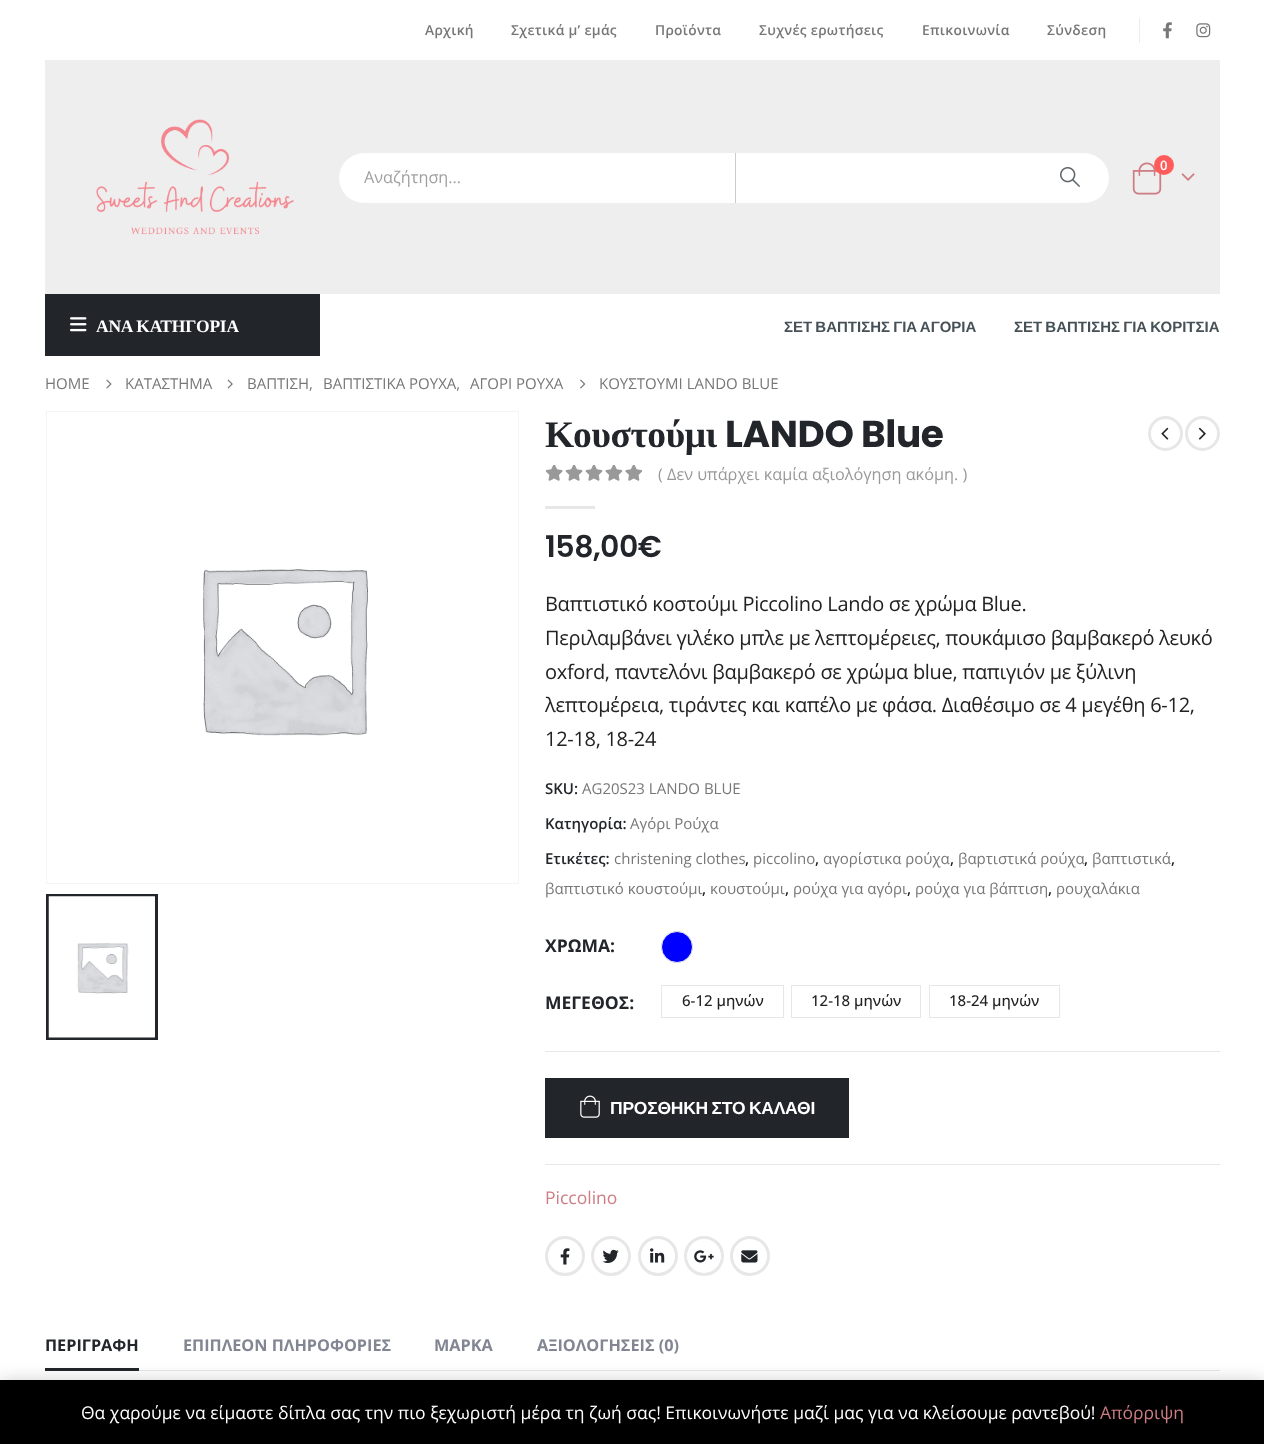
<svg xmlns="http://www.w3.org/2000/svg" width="1264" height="1444">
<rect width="100%" height="100%" fill="#fff"/>
<text x="425" y="35" style="font-family:Open Sans;font-size:13.75px;font-weight:600;letter-spacing:0.3px;fill:#777">Αρχική</text>
<text x="511" y="35" style="font-family:Open Sans;font-size:13.75px;font-weight:600;letter-spacing:0.3px;fill:#777">Σχετικά μ’ εμάς</text>
<text x="655" y="35" style="font-family:Open Sans;font-size:13.75px;font-weight:600;letter-spacing:0.3px;fill:#777">Προϊόντα</text>
<text x="759" y="35" style="font-family:Open Sans;font-size:13.75px;font-weight:600;letter-spacing:0.3px;fill:#777">Συχνές ερωτήσεις</text>
<text x="922" y="35" style="font-family:Open Sans;font-size:13.75px;font-weight:600;letter-spacing:0.3px;fill:#777">Επικοινωνία</text>
<text x="1047" y="35" style="font-family:Open Sans;font-size:13.75px;font-weight:600;letter-spacing:0.3px;fill:#777">Σύνδεση</text>
<rect x="1139" y="18" width="1" height="25" fill="#ececec"/>
<image x="1163" y="22" width="9" height="17" href="media/1.png"/>
<image x="1196" y="23" width="15" height="15" href="media/2.png"/>
<rect x="45" y="60" width="1175" height="234" fill="#efeeee"/>
<image x="96" y="119" width="198" height="116" href="media/3.png"/>
<image x="1132" y="162" width="30" height="33" href="media/4.png"/>
<circle cx="1164" cy="165" r="10" fill="#ff5b5b"/>
<text x="1160" y="170" style="font-family:Open Sans;font-size:13px;font-weight:600;fill:#fff">0</text>
<image x="1181" y="173" width="14" height="8" href="media/5.png"/>
<rect x="339" y="153" width="770" height="50" rx="25" fill="#fff"/>
<rect x="735" y="153" width="1" height="50" fill="#ccc"/>
<text x="364" y="183" style="font-family:Open Sans;font-size:16.25px;fill:#a0a0a0">Αναζήτηση...</text>
<image x="1060" y="167" width="20" height="20" href="media/6.png"/>
<rect x="45" y="294" width="275" height="62" fill="#222529"/>
<image x="70" y="317" width="17" height="15" href="media/7.png"/>
<text x="96" y="332" style="font-family:Liberation Serif;font-size:17.5px;font-weight:bold;letter-spacing:-0.25px;fill:#fff">ΑΝΑ ΚΑΤΗΓΟΡΙΑ</text>
<text x="784" y="332" word-spacing="-1" style="font-family:Liberation Sans;font-size:15px;font-weight:bold;fill:#465157">ΣΕΤ ΒΑΠΤΙΣΗΣ ΓΙΑ ΑΓΟΡΙΑ</text>
<text x="1014" y="332" word-spacing="-1" style="font-family:Liberation Sans;font-size:15px;font-weight:bold;fill:#465157">ΣΕΤ ΒΑΠΤΙΣΗΣ ΓΙΑ ΚΟΡΙΤΣΙΑ</text>
<text x="45" y="389" style="font-family:Open Sans;font-size:15px;fill:#777">HOME</text>
<image x="106" y="379" width="6" height="10" href="media/8.png"/>
<text x="125" y="389" style="font-family:Open Sans;font-size:15px;fill:#777">ΚΑΤΑΣΤΗΜΑ</text>
<image x="227" y="379" width="6" height="10" href="media/9.png"/>
<text x="247" y="389" style="font-family:Open Sans;font-size:15px;fill:#777">ΒΑΠΤΙΣΗ,</text>
<text x="323" y="389" style="font-family:Open Sans;font-size:15px;fill:#777">ΒΑΠΤΙΣΤΙΚΑ ΡΟΥΧΑ,</text>
<text x="470" y="389" style="font-family:Open Sans;font-size:15px;fill:#777">ΑΓΟΡΙ ΡΟΥΧΑ</text>
<image x="580" y="379" width="6" height="10" href="media/10.png"/>
<text x="599" y="389" style="font-family:Open Sans;font-size:15px;fill:#777">ΚΟΥΣΤΟΥΜΙ LANDO BLUE</text>
<rect x="46.5" y="411.5" width="472" height="472" fill="none" stroke="#f4f4f4"/>
<image x="202" y="569" width="166" height="167" href="media/11.png"/>
<rect x="47.5" y="895.5" width="109" height="143" fill="none" stroke="#222529" stroke-width="3"/>
<image x="48" y="896" width="107" height="142" href="media/12.png"/>
<text x="545" y="447" style="font-family:Liberation Serif;font-size:37.5px;font-weight:bold;letter-spacing:-0.4px;fill:#222529">Κουστούμι</text>
<text x="725" y="447" style="font-family:Poppins;font-size:37.5px;font-weight:bold;letter-spacing:-0.4px;fill:#222529">LANDO Blue</text>
<circle cx="1165.5" cy="433.5" r="16" fill="none" stroke="#e7e7e7" stroke-width="3"/>
<image x="1161" y="427" width="8" height="13" href="media/13.png"/>
<circle cx="1202.5" cy="433.5" r="16" fill="none" stroke="#e7e7e7" stroke-width="3"/>
<image x="1198" y="427" width="8" height="13" href="media/14.png"/>
<image x="545" y="465" width="98" height="16" href="media/15.png"/>
<text x="658" y="480" style="font-family:Open Sans;font-size:16.25px;fill:#999">( Δεν υπάρχει καμία αξιολόγηση ακόμη. )</text>
<rect x="545" y="506" width="50" height="3" fill="#e7e7e7"/>
<text x="545" y="557" style="font-family:Poppins;font-size:30px;font-weight:600;letter-spacing:-0.5px;fill:#222529">158,00€</text>
<text x="545" y="611" style="font-family:Open Sans;font-size:20px;letter-spacing:-0.3px;fill:#222">Βαπτιστικό κοστούμι Piccolino Lando σε χρώμα Blue.</text>
<text x="545" y="645" style="font-family:Open Sans;font-size:20px;letter-spacing:-0.3px;fill:#222">Περιλαμβάνει γιλέκο μπλε με λεπτομέρειες, πουκάμισο βαμβακερό λευκό</text>
<text x="545" y="679" style="font-family:Open Sans;font-size:20px;letter-spacing:-0.3px;fill:#222">oxford, παντελόνι βαμβακερό σε χρώμα blue, παπιγιόν με ξύλινη</text>
<text x="545" y="712" style="font-family:Open Sans;font-size:20px;letter-spacing:-0.3px;fill:#222">λεπτομέρεια, τιράντες και καπέλο με φάσα. Διαθέσιμο σε 4 μεγέθη 6-12,</text>
<text x="545" y="746" style="font-family:Open Sans;font-size:20px;letter-spacing:-0.3px;fill:#222">12-18, 18-24</text>
<text x="545" y="794" style="font-family:Open Sans;font-size:15px;font-weight:600;fill:#222529">SKU:</text>
<text x="582" y="794" style="font-family:Open Sans;font-size:15px;fill:#777">AG20S23 LANDO BLUE</text>
<text x="545" y="829" style="font-family:Open Sans;font-size:15px;font-weight:600;fill:#222529">Κατηγορία:</text>
<text x="630" y="829" style="font-family:Open Sans;font-size:15px;fill:#777">Αγόρι Ρούχα</text>
<text x="545" y="864" style="font-family:Open Sans;font-size:15px;font-weight:600;fill:#222529">Ετικέτες:</text>
<text x="614" y="864" style="font-family:Open Sans;font-size:15px;fill:#777">christening clothes</text>
<text x="745" y="864" style="font-family:Open Sans;font-size:15px;font-weight:600;fill:#222529">,</text>
<text x="753" y="864" style="font-family:Open Sans;font-size:15px;fill:#777">piccolino</text>
<text x="815" y="864" style="font-family:Open Sans;font-size:15px;font-weight:600;fill:#222529">,</text>
<text x="823" y="864" style="font-family:Open Sans;font-size:15px;fill:#777">αγορίστικα ρούχα</text>
<text x="950" y="864" style="font-family:Open Sans;font-size:15px;font-weight:600;fill:#222529">,</text>
<text x="958" y="864" style="font-family:Open Sans;font-size:15px;fill:#777">βαpτιστικά ρούχα</text>
<text x="1084" y="864" style="font-family:Open Sans;font-size:15px;font-weight:600;fill:#222529">,</text>
<text x="1092" y="864" style="font-family:Open Sans;font-size:15px;fill:#777">βαπτιστικά</text>
<text x="1171" y="864" style="font-family:Open Sans;font-size:15px;font-weight:600;fill:#222529">,</text>
<text x="545" y="894" style="font-family:Open Sans;font-size:15px;fill:#777">βαπτιστικό κουστούμι</text>
<text x="702" y="894" style="font-family:Open Sans;font-size:15px;font-weight:600;fill:#222529">,</text>
<text x="710" y="894" style="font-family:Open Sans;font-size:15px;fill:#777">κουστούμι</text>
<text x="785" y="894" style="font-family:Open Sans;font-size:15px;font-weight:600;fill:#222529">,</text>
<text x="793" y="894" style="font-family:Open Sans;font-size:15px;fill:#777">ρούχα για αγόρι</text>
<text x="907" y="894" style="font-family:Open Sans;font-size:15px;font-weight:600;fill:#222529">,</text>
<text x="915" y="894" style="font-family:Open Sans;font-size:15px;fill:#777">ρούχα για βάπτιση</text>
<text x="1048" y="894" style="font-family:Open Sans;font-size:15px;font-weight:600;fill:#222529">,</text>
<text x="1056" y="894" style="font-family:Open Sans;font-size:15px;fill:#777">ρουχαλάκια</text>
<text x="545" y="952" style="font-family:Open Sans;font-size:17.5px;font-weight:bold;fill:#222529">ΧΡΩΜΑ:</text>
<circle cx="677" cy="947" r="15.5" fill="#00f" stroke="#e7e7e7"/>
<text x="545" y="1009" style="font-family:Open Sans;font-size:17.5px;font-weight:bold;fill:#222529">ΜΕΓΕΘΟΣ:</text>
<rect x="661.5" y="985.5" width="122" height="32" fill="none" stroke="#e7e7e7"/>
<text x="682" y="1006" style="font-family:Open Sans;font-size:15px;font-weight:500;fill:#222">6-12 μηνών</text>
<rect x="791.5" y="985.5" width="129" height="32" fill="none" stroke="#e7e7e7"/>
<text x="811" y="1006" style="font-family:Open Sans;font-size:15px;font-weight:500;fill:#222">12-18 μηνών</text>
<rect x="929.5" y="985.5" width="130" height="32" fill="none" stroke="#e7e7e7"/>
<text x="949" y="1006" style="font-family:Open Sans;font-size:15px;font-weight:500;fill:#222">18-24 μηνών</text>
<rect x="545" y="1051" width="675" height="1" fill="#e7e7e7"/>
<rect x="545" y="1164" width="675" height="1" fill="#e7e7e7"/>
<rect x="545" y="1078" width="304" height="60" fill="#222529"/>
<image x="580" y="1095" width="20" height="23" href="media/16.png"/>
<text x="610" y="1114" word-spacing="-1" style="font-family:Liberation Sans;font-size:17.5px;font-weight:bold;letter-spacing:-0.25px;fill:#fff">ΠΡΟΣΘΗΚΗ ΣΤΟ ΚΑΛΑΘΙ</text>
<text x="545" y="1204" style="font-family:Open Sans;font-size:17.5px;fill:#cd7d83">Piccolino</text>
<circle cx="565" cy="1256" r="18.5" fill="none" stroke="#e7e7e7" stroke-width="3"/>
<image x="560" y="1248" width="10" height="17" href="media/17.png"/>
<circle cx="611" cy="1256" r="18.5" fill="none" stroke="#e7e7e7" stroke-width="3"/>
<image x="602" y="1249" width="17" height="14" href="media/18.png"/>
<circle cx="658" cy="1256" r="18.5" fill="none" stroke="#e7e7e7" stroke-width="3"/>
<image x="650" y="1248" width="15" height="15" href="media/19.png"/>
<circle cx="704" cy="1256" r="18.5" fill="none" stroke="#e7e7e7" stroke-width="3"/>
<image x="694" y="1250" width="20" height="13" href="media/20.png"/>
<circle cx="750" cy="1256" r="18.5" fill="none" stroke="#e7e7e7" stroke-width="3"/>
<image x="741" y="1250" width="17" height="13" href="media/21.png"/>
<rect x="45" y="1368" width="94" height="3" fill="#222529"/>
<text x="45" y="1351" style="font-family:Open Sans;font-size:16.25px;font-weight:bold;fill:#222529">ΠΕΡΙΓΡΑΦΗ</text>
<text x="183" y="1351" style="font-family:Open Sans;font-size:16.25px;font-weight:bold;fill:#818692">ΕΠΙΠΛΕΟΝ ΠΛΗΡΟΦΟΡΙΕΣ</text>
<text x="434" y="1351" style="font-family:Open Sans;font-size:16.25px;font-weight:bold;fill:#818692">ΜΑΡΚΑ</text>
<text x="537" y="1351" style="font-family:Open Sans;font-size:16.25px;font-weight:bold;fill:#818692">ΑΞΙΟΛΟΓΗΣΕΙΣ (0)</text>
<rect x="139" y="1370" width="1081" height="1" fill="#e7e7e7"/>
<rect y="1381" width="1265" height="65" fill="#00000033" filter="blur(9px)"/>
<rect y="1380" width="1264" height="64" fill="#000"/>
<text x="81" y="1419" style="font-family:Open Sans;font-size:17.5px;fill:#fff">Θα χαρούμε να είμαστε δίπλα σας την πιο ξεχωριστή μέρα τη ζωή σας! Επικοινωνήστε μαζί μας για να κλείσουμε ραντεβού!</text>
<text x="1100" y="1419" style="font-family:Open Sans;font-size:17.5px;fill:#cd7d83">Απόρριψη</text>
</svg>
